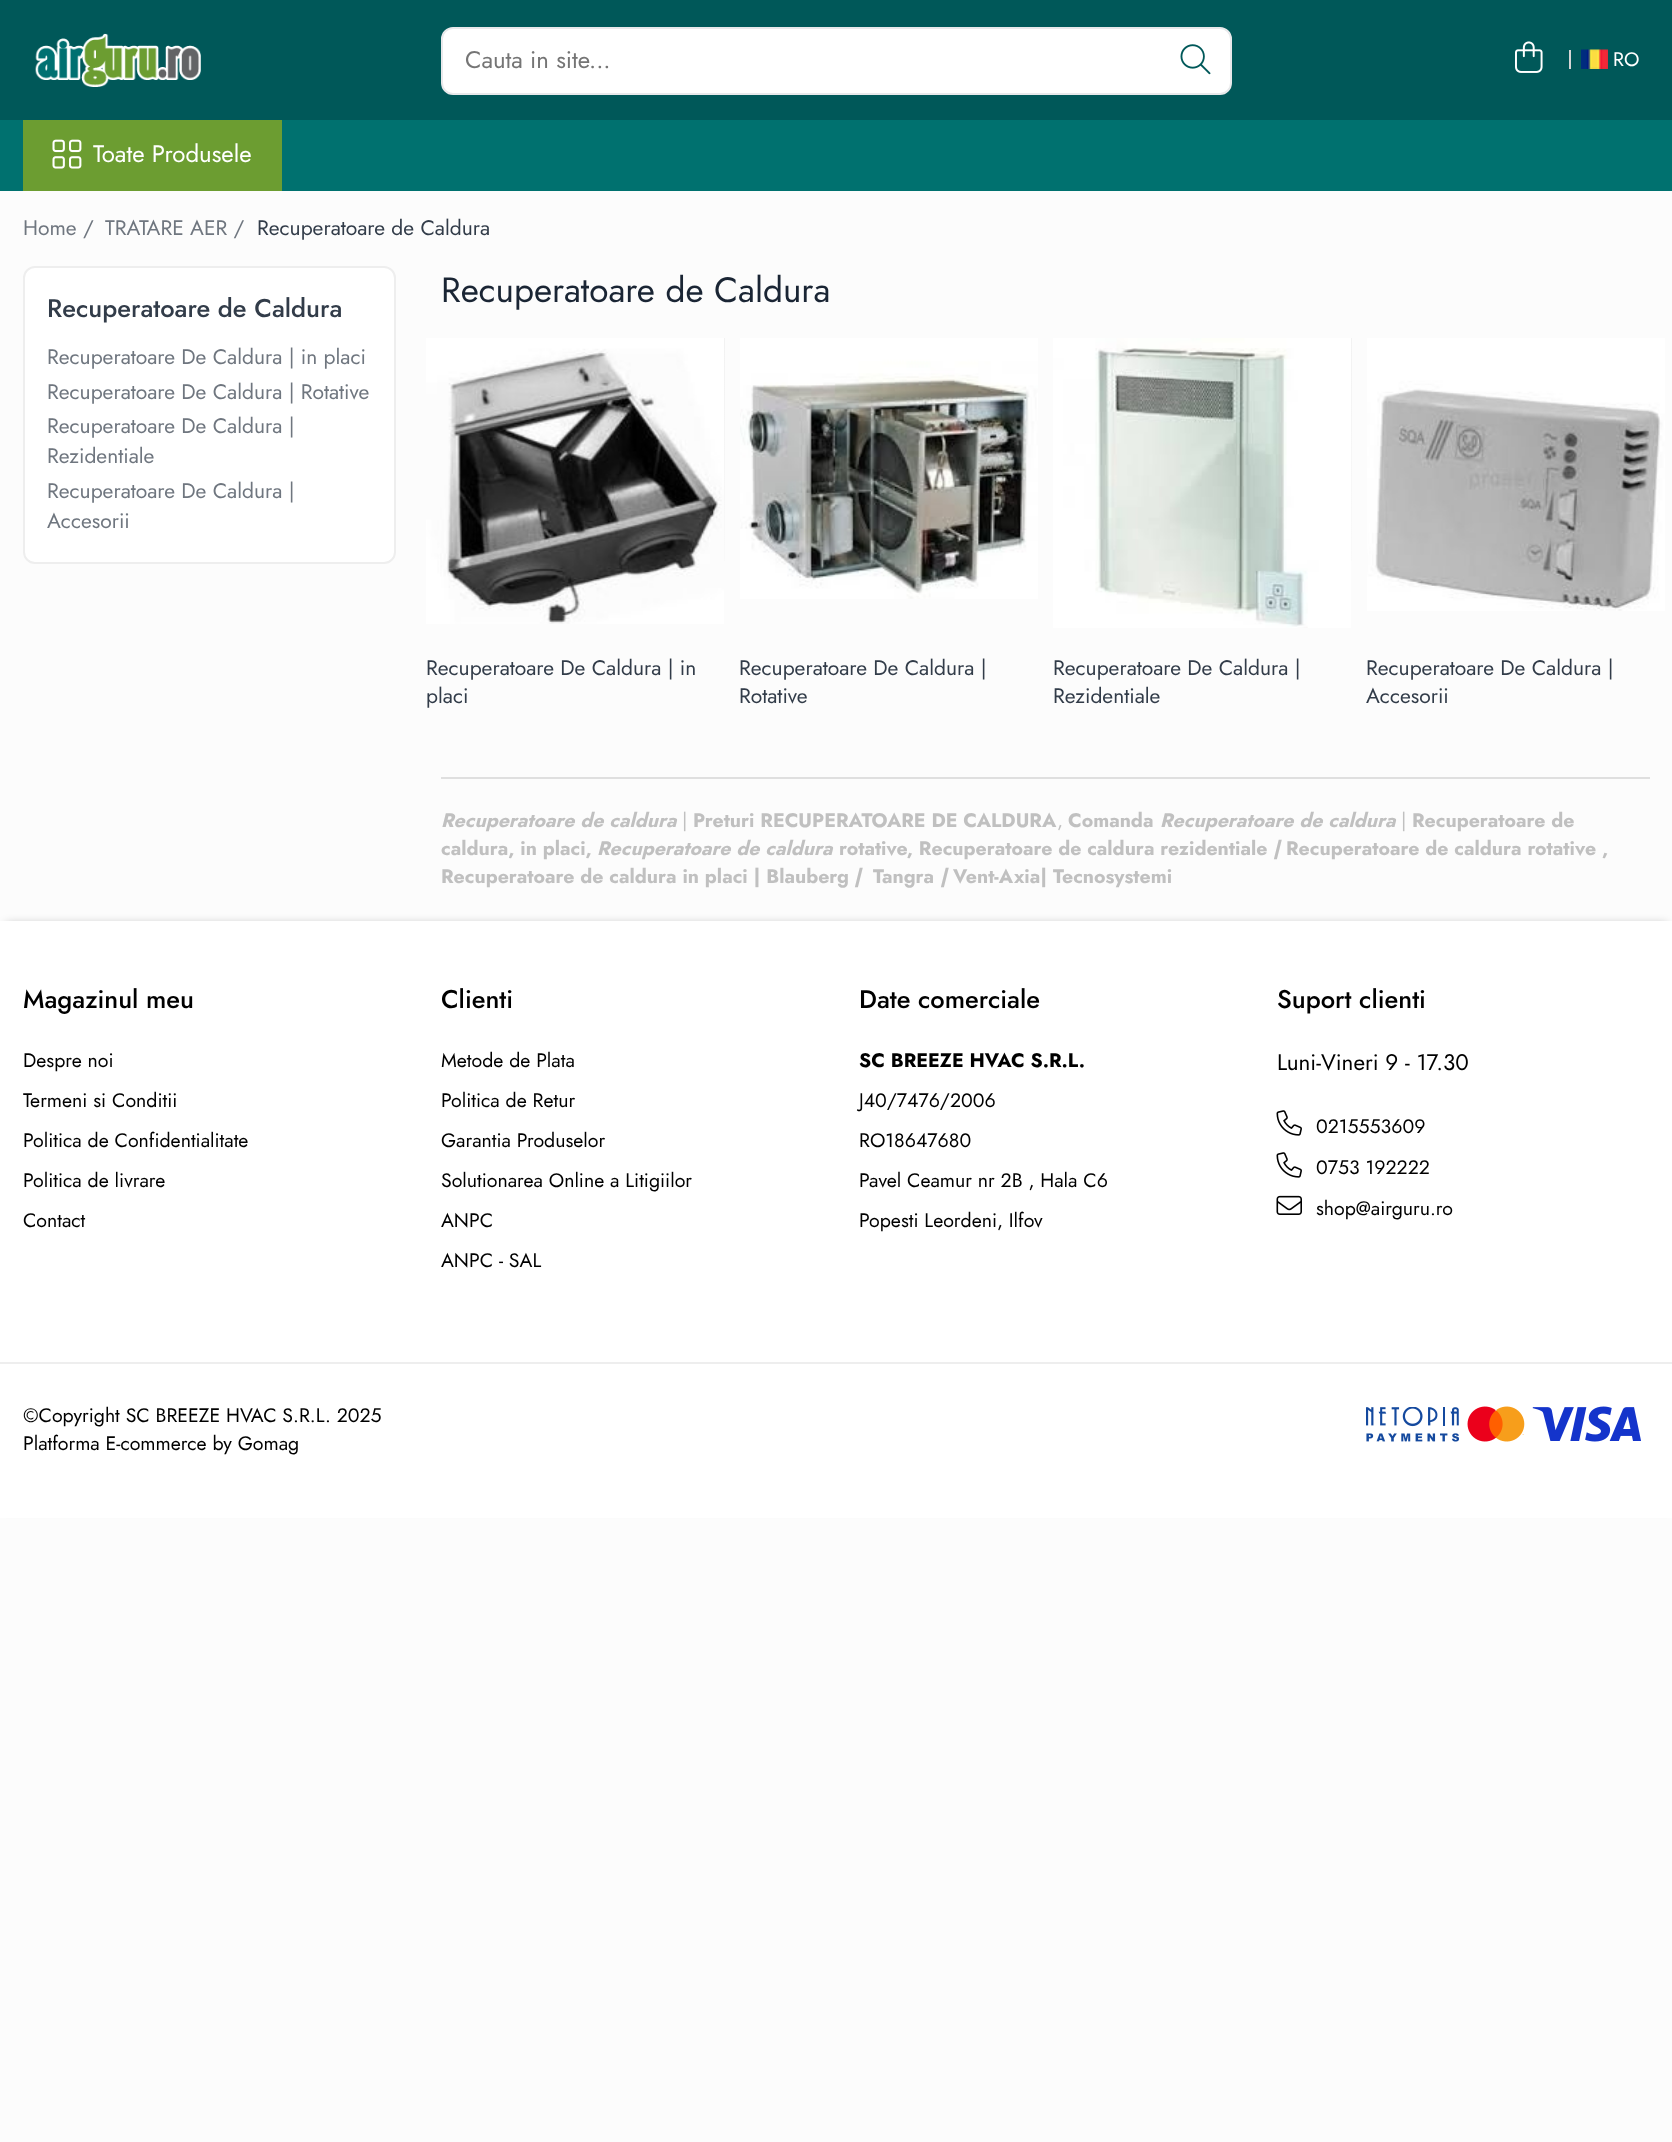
<svg xmlns="http://www.w3.org/2000/svg" width="1672" height="2142">
<defs>
<linearGradient id="g1" gradientUnits="userSpaceOnUse" x1="575" y1="338" x2="575" y2="636"><stop offset="0" stop-color="#f2f2f2"/><stop offset="1" stop-color="#fcfcfc"/></linearGradient>
<linearGradient id="g2" gradientUnits="userSpaceOnUse" x1="1202" y1="338" x2="1202" y2="636"><stop offset="0" stop-color="#f2f2f2"/><stop offset="1" stop-color="#fcfcfc"/></linearGradient>
</defs>
<rect width="100%" height="100%" fill="#fcfcfc"/>
<rect width="1672" height="120" fill="#005859"/>
<image x="35" y="33" width="166" height="54" href="media/1.png"/>
<rect x="442" y="28" width="789" height="66" rx="11" fill="#fff" stroke="#e8e9eb" stroke-width="2"/>
<text x="465" y="68" style="font-family:Jost;font-size:24px;fill:#757575">Cauta in site...</text>
<image x="1180" y="44" width="31" height="31" href="media/2.png"/>
<image x="1515" y="41" width="28" height="32" href="media/3.png"/>
<image x="1581" y="49" width="27" height="20" href="media/4.png"/>
<text x="1613" y="66" style="font-family:Jost;font-size:19.5px;fill:#fff">RO</text>
<rect x="1569" y="50" width="2" height="19" fill="#d5d5d5"/>
<rect y="120" width="1672" height="71" fill="#00716f"/>
<rect x="23" y="120" width="259" height="71" fill="#6c9d31"/>
<image x="52" y="139" width="30" height="30" href="media/5.png"/>
<text x="93" y="162" style="font-family:Jost;font-size:24px;fill:#fff">Toate Produsele</text>
<text x="23" y="235" style="font-family:Jost;font-size:21px;fill:#6f767f">Home /</text>
<text x="105" y="235" style="font-family:Jost;font-size:21px;fill:#6f767f">TRATARE AER /</text>
<text x="257" y="235" style="font-family:Jost;font-size:21px;fill:#323c49">Recuperatoare de Caldura</text>
<text x="441" y="302" style="font-family:Jost;font-size:35.1px;fill:#1a2534">Recuperatoare de Caldura</text>
<rect x="24" y="267" width="371" height="296" rx="11" fill="#fff" stroke="#eee" stroke-width="2"/>
<text x="47" y="317" style="font-family:Jost;font-size:25.5px;font-weight:500;fill:#323c49">Recuperatoare de Caldura</text>
<text x="47" y="364" style="font-family:Jost;font-size:21px;fill:#6f767f">Recuperatoare De Caldura | in placi</text>
<text x="47" y="399" style="font-family:Jost;font-size:21px;fill:#6f767f">Recuperatoare De Caldura | Rotative</text>
<text x="47" y="433" style="font-family:Jost;font-size:21px;fill:#6f767f">Recuperatoare De Caldura |</text>
<text x="47" y="463" style="font-family:Jost;font-size:21px;fill:#6f767f">Rezidentiale</text>
<text x="47" y="498" style="font-family:Jost;font-size:21px;fill:#6f767f">Recuperatoare De Caldura |</text>
<text x="47" y="528" style="font-family:Jost;font-size:21px;fill:#6f767f">Accesorii</text>
<rect x="441" y="777" width="1209" height="2" fill="#dfdfdf"/>
<rect x="426" y="338" width="299" height="223" fill="url(#g1)"/>
<image x="426" y="338" width="298" height="286" href="media/6.png"/>
<text x="426" y="675" style="font-family:Jost;font-size:21px;fill:#323c49">Recuperatoare De Caldura | in</text>
<text x="426" y="703" style="font-family:Jost;font-size:21px;fill:#323c49">placi</text>
<image x="740" y="338" width="298" height="261" href="media/7.png"/>
<text x="739" y="675" style="font-family:Jost;font-size:21px;fill:#323c49">Recuperatoare De Caldura |</text>
<text x="739" y="703" style="font-family:Jost;font-size:21px;fill:#323c49">Rotative</text>
<rect x="1053" y="338" width="299" height="223" fill="url(#g2)"/>
<image x="1053" y="338" width="298" height="290" href="media/8.png"/>
<text x="1053" y="675" style="font-family:Jost;font-size:21px;fill:#323c49">Recuperatoare De Caldura |</text>
<text x="1053" y="703" style="font-family:Jost;font-size:21px;fill:#323c49">Rezidentiale</text>
<image x="1367" y="338" width="298" height="273" href="media/9.png"/>
<text x="1366" y="675" style="font-family:Jost;font-size:21px;fill:#323c49">Recuperatoare De Caldura |</text>
<text x="1366" y="703" style="font-family:Jost;font-size:21px;fill:#323c49">Accesorii</text>
<text x="441" y="827" style="font-family:Jost;font-size:19.5px;font-weight:bold;font-style:italic;fill:#c0c0c0">Recuperatoare de caldura</text>
<text x="682" y="827" style="font-family:Jost;font-size:19.5px;fill:#c0c0c0">|</text>
<text x="693" y="827" style="font-family:Jost;font-size:19.5px;font-weight:bold;fill:#c0c0c0">Preturi RECUPERATOARE DE CALDURA</text>
<text x="1057" y="827" style="font-family:Jost;font-size:19.5px;fill:#c0c0c0">,</text>
<text x="1068" y="827" style="font-family:Jost;font-size:19.5px;font-weight:bold;fill:#c0c0c0">Comanda</text>
<text x="1160" y="827" style="font-family:Jost;font-size:19.5px;font-weight:bold;font-style:italic;fill:#c0c0c0">Recuperatoare de caldura</text>
<text x="1401" y="827" style="font-family:Jost;font-size:19.5px;fill:#c0c0c0">|</text>
<text x="1412" y="827" style="font-family:Jost;font-size:19.5px;font-weight:bold;fill:#c0c0c0">Recuperatoare de</text>
<text x="441" y="855" style="font-family:Jost;font-size:19.5px;font-weight:bold;fill:#c0c0c0">caldura, in placi,</text>
<text x="597" y="855" style="font-family:Jost;font-size:19.5px;font-weight:bold;font-style:italic;fill:#c0c0c0">Recuperatoare de caldura</text>
<text x="839" y="855" style="font-family:Jost;font-size:19.5px;font-weight:bold;fill:#c0c0c0">rotative, Recuperatoare de caldura rezidentiale</text>
<text x="1273" y="855" style="font-family:Jost;font-size:19.5px;font-weight:bold;font-style:italic;fill:#c0c0c0">|</text>
<text x="1286" y="855" style="font-family:Jost;font-size:19.5px;font-weight:bold;fill:#c0c0c0">Recuperatoare de caldura rotative ,</text>
<text x="441" y="883" style="font-family:Jost;font-size:19.5px;font-weight:bold;fill:#c0c0c0">Recuperatoare de caldura in placi | Blauberg</text>
<text x="854" y="883" style="font-family:Jost;font-size:19.5px;font-weight:bold;font-style:italic;fill:#c0c0c0">|</text>
<text x="873" y="883" style="font-family:Jost;font-size:19.5px;font-weight:bold;fill:#c0c0c0">Tangra</text>
<text x="940" y="883" style="font-family:Jost;font-size:19.5px;font-weight:bold;font-style:italic;fill:#c0c0c0">|</text>
<text x="953" y="883" style="font-family:Jost;font-size:19.5px;font-weight:bold;fill:#c0c0c0">Vent-Axia| Tecnosystemi</text>
<rect x="6" y="924" width="1661" height="585" fill="#0000004d" filter="blur(5px)"/>
<rect y="921" width="1672" height="597" fill="#fff"/>
<text x="23" y="1008" style="font-family:Jost;font-size:25.5px;font-weight:500;fill:#000">Magazinul meu</text>
<text x="23" y="1067" style="font-family:Jost;font-size:19.5px;fill:#000">Despre noi</text>
<text x="23" y="1107" style="font-family:Jost;font-size:19.5px;fill:#000">Termeni si Conditii</text>
<text x="23" y="1147" style="font-family:Jost;font-size:19.5px;fill:#000">Politica de Confidentialitate</text>
<text x="23" y="1187" style="font-family:Jost;font-size:19.5px;fill:#000">Politica de livrare</text>
<text x="23" y="1227" style="font-family:Jost;font-size:19.5px;fill:#000">Contact</text>
<text x="441" y="1008" style="font-family:Jost;font-size:25.5px;font-weight:500;fill:#000">Clienti</text>
<text x="441" y="1067" style="font-family:Jost;font-size:19.5px;fill:#000">Metode de Plata</text>
<text x="441" y="1107" style="font-family:Jost;font-size:19.5px;fill:#000">Politica de Retur</text>
<text x="441" y="1147" style="font-family:Jost;font-size:19.5px;fill:#000">Garantia Produselor</text>
<text x="441" y="1187" style="font-family:Jost;font-size:19.5px;fill:#000">Solutionarea Online a Litigiilor</text>
<text x="441" y="1227" style="font-family:Jost;font-size:19.5px;fill:#000">ANPC</text>
<text x="441" y="1267" style="font-family:Jost;font-size:19.5px;fill:#000">ANPC - SAL</text>
<text x="859" y="1008" style="font-family:Jost;font-size:25.5px;font-weight:500;fill:#000">Date comerciale</text>
<text x="859" y="1067" style="font-family:Jost;font-size:19.5px;font-weight:bold;fill:#000">SC BREEZE HVAC S.R.L.</text>
<text x="859" y="1107" style="font-family:Jost;font-size:19.5px;fill:#000">J40/7476/2006</text>
<text x="859" y="1147" style="font-family:Jost;font-size:19.5px;fill:#000">RO18647680</text>
<text x="859" y="1187" style="font-family:Jost;font-size:19.5px;fill:#000">Pavel Ceamur nr 2B , Hala C6</text>
<text x="859" y="1227" style="font-family:Jost;font-size:19.5px;fill:#000">Popesti Leordeni, Ilfov</text>
<text x="1277" y="1008" style="font-family:Jost;font-size:25.5px;font-weight:500;fill:#000">Suport clienti</text>
<text x="1277" y="1070" style="font-family:Jost;font-size:22.5px;fill:#000">Luni-Vineri 9 - 17.30</text>
<image x="1276" y="1110" width="26" height="26" href="media/10.png"/>
<text x="1316" y="1133" style="font-family:Jost;font-size:19.5px;fill:#000">0215553609</text>
<image x="1276" y="1152" width="26" height="26" href="media/10.png"/>
<text x="1316" y="1174" style="font-family:Jost;font-size:19.5px;fill:#000">0753 192222</text>
<image x="1276" y="1195" width="26" height="20" href="media/11.png"/>
<text x="1316" y="1215" style="font-family:Jost;font-size:19.5px;fill:#000">shop@airguru.ro</text>
<rect y="1362" width="1672" height="2" fill="#eee"/>
<text x="23" y="1422" style="font-family:Jost;font-size:19.5px;fill:#000">©Copyright SC BREEZE HVAC S.R.L. 2025</text>
<text x="23" y="1450" style="font-family:Jost;font-size:19.5px;fill:#000">Platforma E-commerce by Gomag</text>
<image x="1366" y="1406" width="275" height="36" href="media/12.png"/>
</svg>
